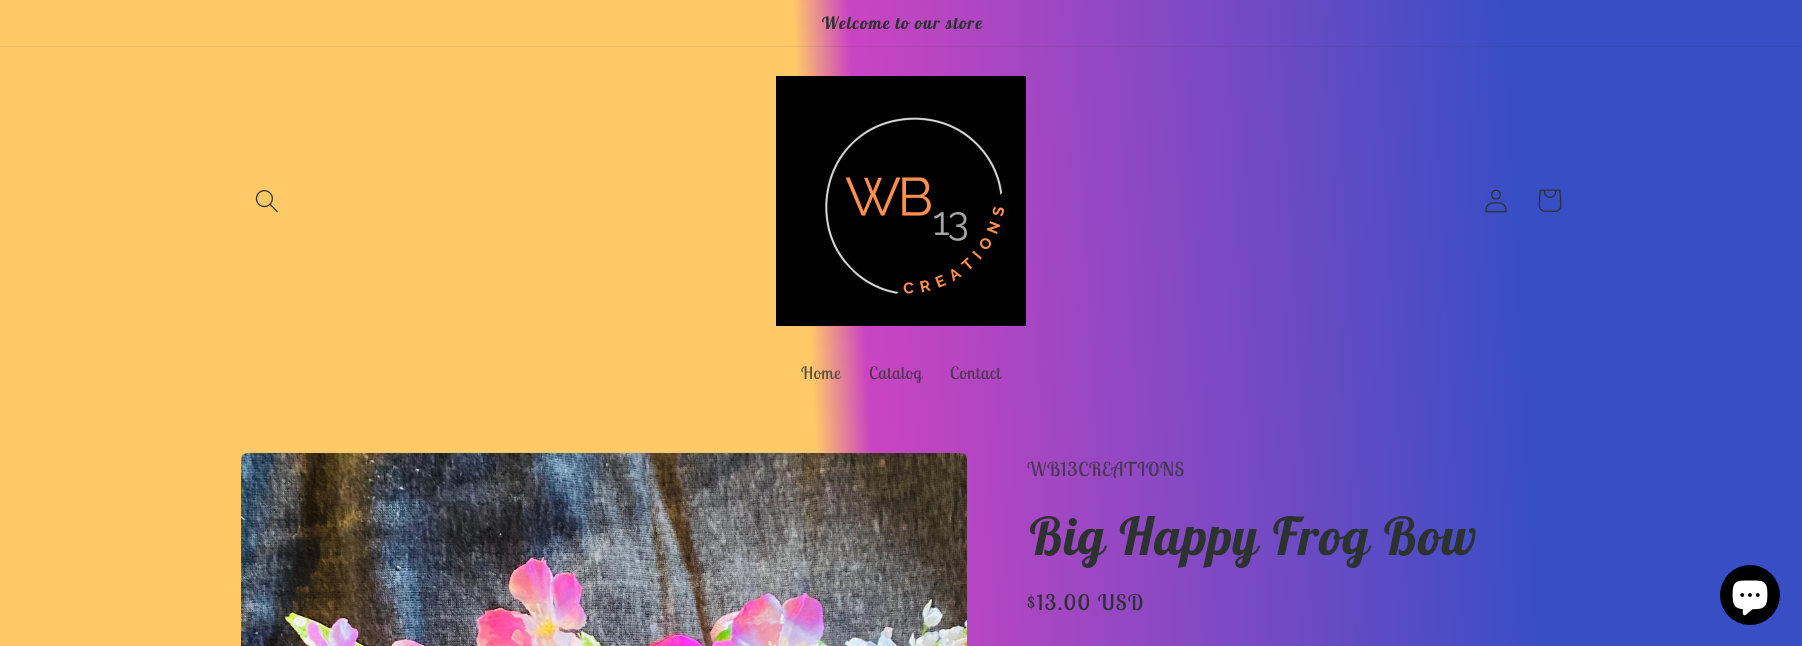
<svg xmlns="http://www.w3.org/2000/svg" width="1802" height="646">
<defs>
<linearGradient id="g1" gradientUnits="userSpaceOnUse" x1="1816" y1="275" x2="-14" y2="371"><stop offset="0.16" stop-color="#384ec5"/><stop offset="0.52" stop-color="#cb44c2"/><stop offset="0.55" stop-color="#ffc968"/></linearGradient>
<linearGradient id="g2" gradientUnits="userSpaceOnUse" x1="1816" y1="275" x2="-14" y2="371"><stop offset="0.16" stop-color="#374cb9"/><stop offset="0.52" stop-color="#be43b6"/><stop offset="0.55" stop-color="#eebd63"/></linearGradient>
</defs>
<rect width="100%" height="100%" fill="#fff"/>
<rect width="1802" height="646" fill="url(#g1)"/>
<rect y="46" width="1802" height="1" fill="url(#g2)"/>
<text x="821" y="29" style="font-family:Lobster Two;font-size:17px;font-weight:bold;font-style:italic;letter-spacing:1.2px;fill:#2c332f">Welcome to our store</text>
<image x="255" y="190" width="23" height="23" href="media/1.png"/>
<image x="776" y="76" width="250" height="250" href="media/2.png"/>
<image x="1485" y="189" width="22" height="24" href="media/3.png"/>
<image x="1538" y="189" width="24" height="23" href="media/4.png"/>
<text x="801" y="379" style="font-family:Lobster Two;font-size:17px;letter-spacing:0.75px;fill:#5e5241">Home</text>
<text x="869" y="379" style="font-family:Lobster Two;font-size:17px;letter-spacing:0.75px;fill:#523754">Catalog</text>
<text x="950" y="379" style="font-family:Lobster Two;font-size:17px;letter-spacing:0.75px;fill:#523754">Contact</text>
<image x="241" y="453" width="726" height="193" href="media/5.png"/>
<text x="1027" y="476" style="font-family:Lobster Two;font-size:19.25px;letter-spacing:0.75px;fill:#473854">WB13CREATIONS</text>
<text x="1027" y="555" style="font-family:Lobster Two;font-size:52px;font-weight:bold;font-style:italic;letter-spacing:0.75px;fill:#2c332f">Big Happy Frog Bow</text>
<text x="1027" y="610" style="font-family:Lobster Two;font-size:21.5px;letter-spacing:1.5px;fill:#2c332f">$13.00 USD</text>
<circle cx="1750" cy="595" r="30" fill="#000"/>
<image x="1732" y="580" width="36" height="36" href="media/6.png"/>
</svg>
